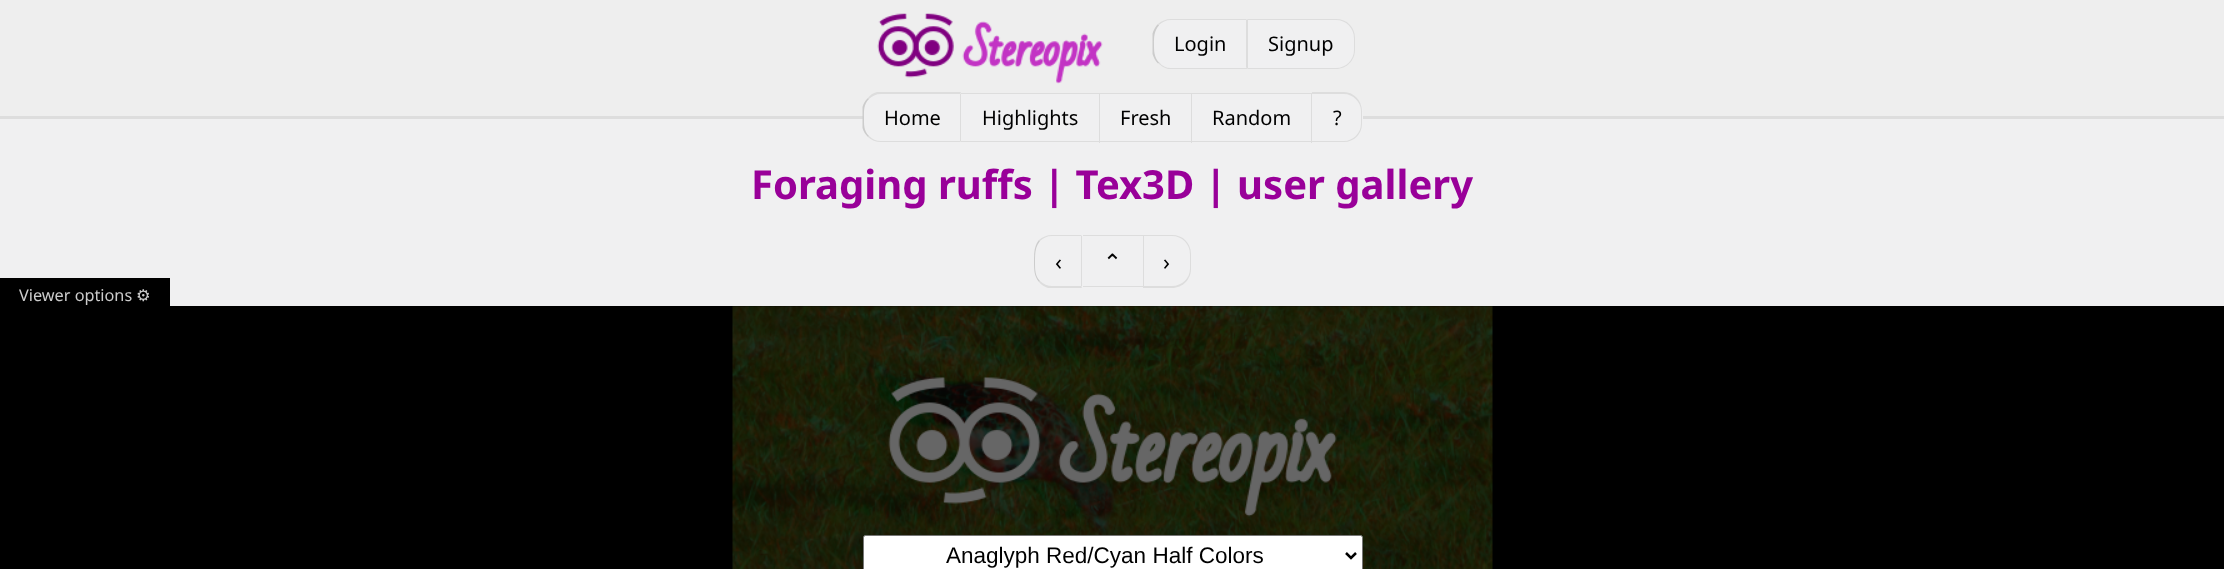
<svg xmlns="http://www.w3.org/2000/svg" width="2224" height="569">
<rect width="100%" height="100%" fill="#f0f0f1"/>
<rect width="2224" height="116" fill="#eee"/>
<rect y="116" width="2224" height="3" fill="#ddd"/>
<image x="877" y="13" width="226" height="71" href="media/1.png"/>
<path d="M1172 19h76v50h-76c-10.5 0-19-8.5-19-19v-12c0-10.5 8.5-19 19-19z" fill="#f0f0f1"/>
<path d="M1171 19c-5 0-10 2-13 5l1 1c3-3 7-5 12-5h75l1-1z" fill="#ddd"/>
<path d="M1248 19l-2 1v47l2 2z" fill="#ddd"/>
<path d="M1248 69h-80c-4-1-7-3-10-6l1-1c3 4 7 6 12 6h75v-1z" fill="#ddd"/>
<path d="M1152.5 33.5c1-3.5 3-7 5.5-9.5l1 1.5c-5 5.5-5 11.5-5 18.5c0 7 0 13 5 18.5l-1 1c-2.5-2.5-4.5-6-5.5-9.5z" fill="#ccc"/>
<text x="1174" y="51" style="font-family:Noto Sans;font-size:20px;fill:#000">Login</text>
<path d="M1248 19h88c10.5 0 19 8.5 19 19v12c0 10.5-8.5 19-19 19h-88z" fill="#f0f0f1"/>
<path d="M1248 19h88c11 0 19 8 19 19v12c0 10-8 19-19 19h-88zm0 1h88c10 0 18 8 18 18v12c0 10-8 18-18 18h-88z" fill="#ddd" fill-rule="evenodd"/>
<text x="1268" y="51" style="font-family:Noto Sans;font-size:20px;fill:#000">Signup</text>
<path d="M882 93h79v50h-79c-10.5 0-19-8.5-19-19v-12c0-10.5 8.5-19 19-19z" fill="#f0f0f1"/>
<path d="M881 94c-5 0-9 2-12 5l-1-1c2-3 5-5 9-6h84l-1 2z" fill="#ddd"/>
<path d="M961 93v49l-1-1v-47z" fill="#ddd"/>
<path d="M961 142h-80c-5 0-10-2-13-5l1-1c3 3 7 5 12 5h79z" fill="#ddd"/>
<path d="M862.5 107c1-3.5 2.5-6.5 5.5-9l1 1c-5.5 5.5-5 11.5-5 18.5c0 7-.5 13 5 18.5l-1 1c-2.5-2.5-4.5-5.5-5.5-9z" fill="#ccc"/>
<text x="884" y="125" style="font-family:Noto Sans;font-size:20px;fill:#000">Home</text>
<rect x="961" y="94" width="138" height="25" fill="#f0f0f1"/>
<rect x="961" y="93" width="352" height="1" fill="#ddd"/>
<rect x="1099" y="93" width="1" height="50" fill="#ddd"/>
<rect x="961" y="141" width="139" height="1" fill="#ddd"/>
<text x="982" y="125" style="font-family:Noto Sans;font-size:20px;fill:#000">Highlights</text>
<rect x="1100" y="94" width="213" height="25" fill="#f0f0f1"/>
<rect x="1191" y="93" width="1" height="50" fill="#ddd"/>
<rect x="1100" y="141" width="93" height="1" fill="#ddd"/>
<text x="1120" y="125" style="font-family:Noto Sans;font-size:20px;fill:#000">Fresh</text>
<rect x="1311" y="93" width="1" height="50" fill="#ddd"/>
<rect x="1193" y="141" width="120" height="1" fill="#ddd"/>
<text x="1212" y="125" style="font-family:Noto Sans;font-size:20px;fill:#000">Random</text>
<path d="M1313 93h31c10.5 0 19 8.5 19 19v12c0 10.5-8.5 19-19 19h-31z" fill="#f0f0f1"/>
<path d="M1312 92h32c10 0 18 9 18 19v13c0 10-8 18-18 18h-32zm0 2h32c9 0 17 8 17 17v13c0 9-8 17-17 17h-32z" fill="#ddd" fill-rule="evenodd"/>
<text x="1333" y="125" style="font-family:Noto Sans;font-size:20px;fill:#000">?</text>
<text x="751" y="199" style="font-family:Noto Sans;font-size:40px;font-weight:bold;fill:#909">Foraging ruffs | Tex3D | user gallery</text>
<rect x="1083" y="235" width="61" height="1" fill="#ddd"/>
<rect x="1143" y="235" width="1" height="53" fill="#ddd"/>
<rect x="1083" y="286" width="61" height="1" fill="#ddd"/>
<text x="1103" y="270" style="font-family:DejaVu Sans;font-size:22.5px;fill:#000">⌃</text>
<path d="M1052 235c-5 0-10 2-13 5l1 1c3-3 7-5 12-5h29l1-1z" fill="#ddd"/>
<path d="M1082 236v51l-1-1v-50z" fill="#ddd"/>
<path d="M1048 288c-3-1-7-3-9-6l1-1c3 3 8 5 12 5h29l1 2z" fill="#ddd"/>
<path d="M1039 240c-5 6-5 14-5 22c0 7 0 14 5 20l1-1c-5-5-5-12-5-19c0-8 0-15 5-21z" fill="#ccc"/>
<text x="1055" y="270" style="font-family:Noto Sans;font-size:22.5px;fill:#000">‹</text>
<path d="M1144 235h28c11 0 19 8 19 19v15c0 10-8 19-19 19h-28zm0 1h28c10 0 18 8 18 18v15c0 9-8 17-18 17h-28z" fill="#ddd" fill-rule="evenodd"/>
<text x="1163" y="270" style="font-family:Noto Sans;font-size:22.5px;fill:#000">›</text>
<rect y="306" width="2224" height="263" fill="#000"/>
<rect y="278" width="170" height="28" fill="#000"/>
<text x="19" y="301" style="font-family:Noto Sans;font-size:16.25px;fill:#ccc">Viewer options</text>
<text x="136" y="301" style="font-family:DejaVu Sans;font-size:16.25px;fill:#ccc">⚙</text>
<image x="732" y="306" width="761" height="263" href="media/2.png"/>
<image x="888" y="377" width="449" height="140" href="media/3.png"/>
<rect x="863.5" y="535.5" width="499" height="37" rx="2" fill="#fff" stroke="#767676"/>
<path d="M1346 553l5 5l5-5" fill="none" stroke="#000" stroke-width="2.5"/>
<text x="946" y="563" style="font-family:Liberation Sans;font-size:22.5px;fill:#000">Anaglyph Red/Cyan Half Colors</text>
</svg>
